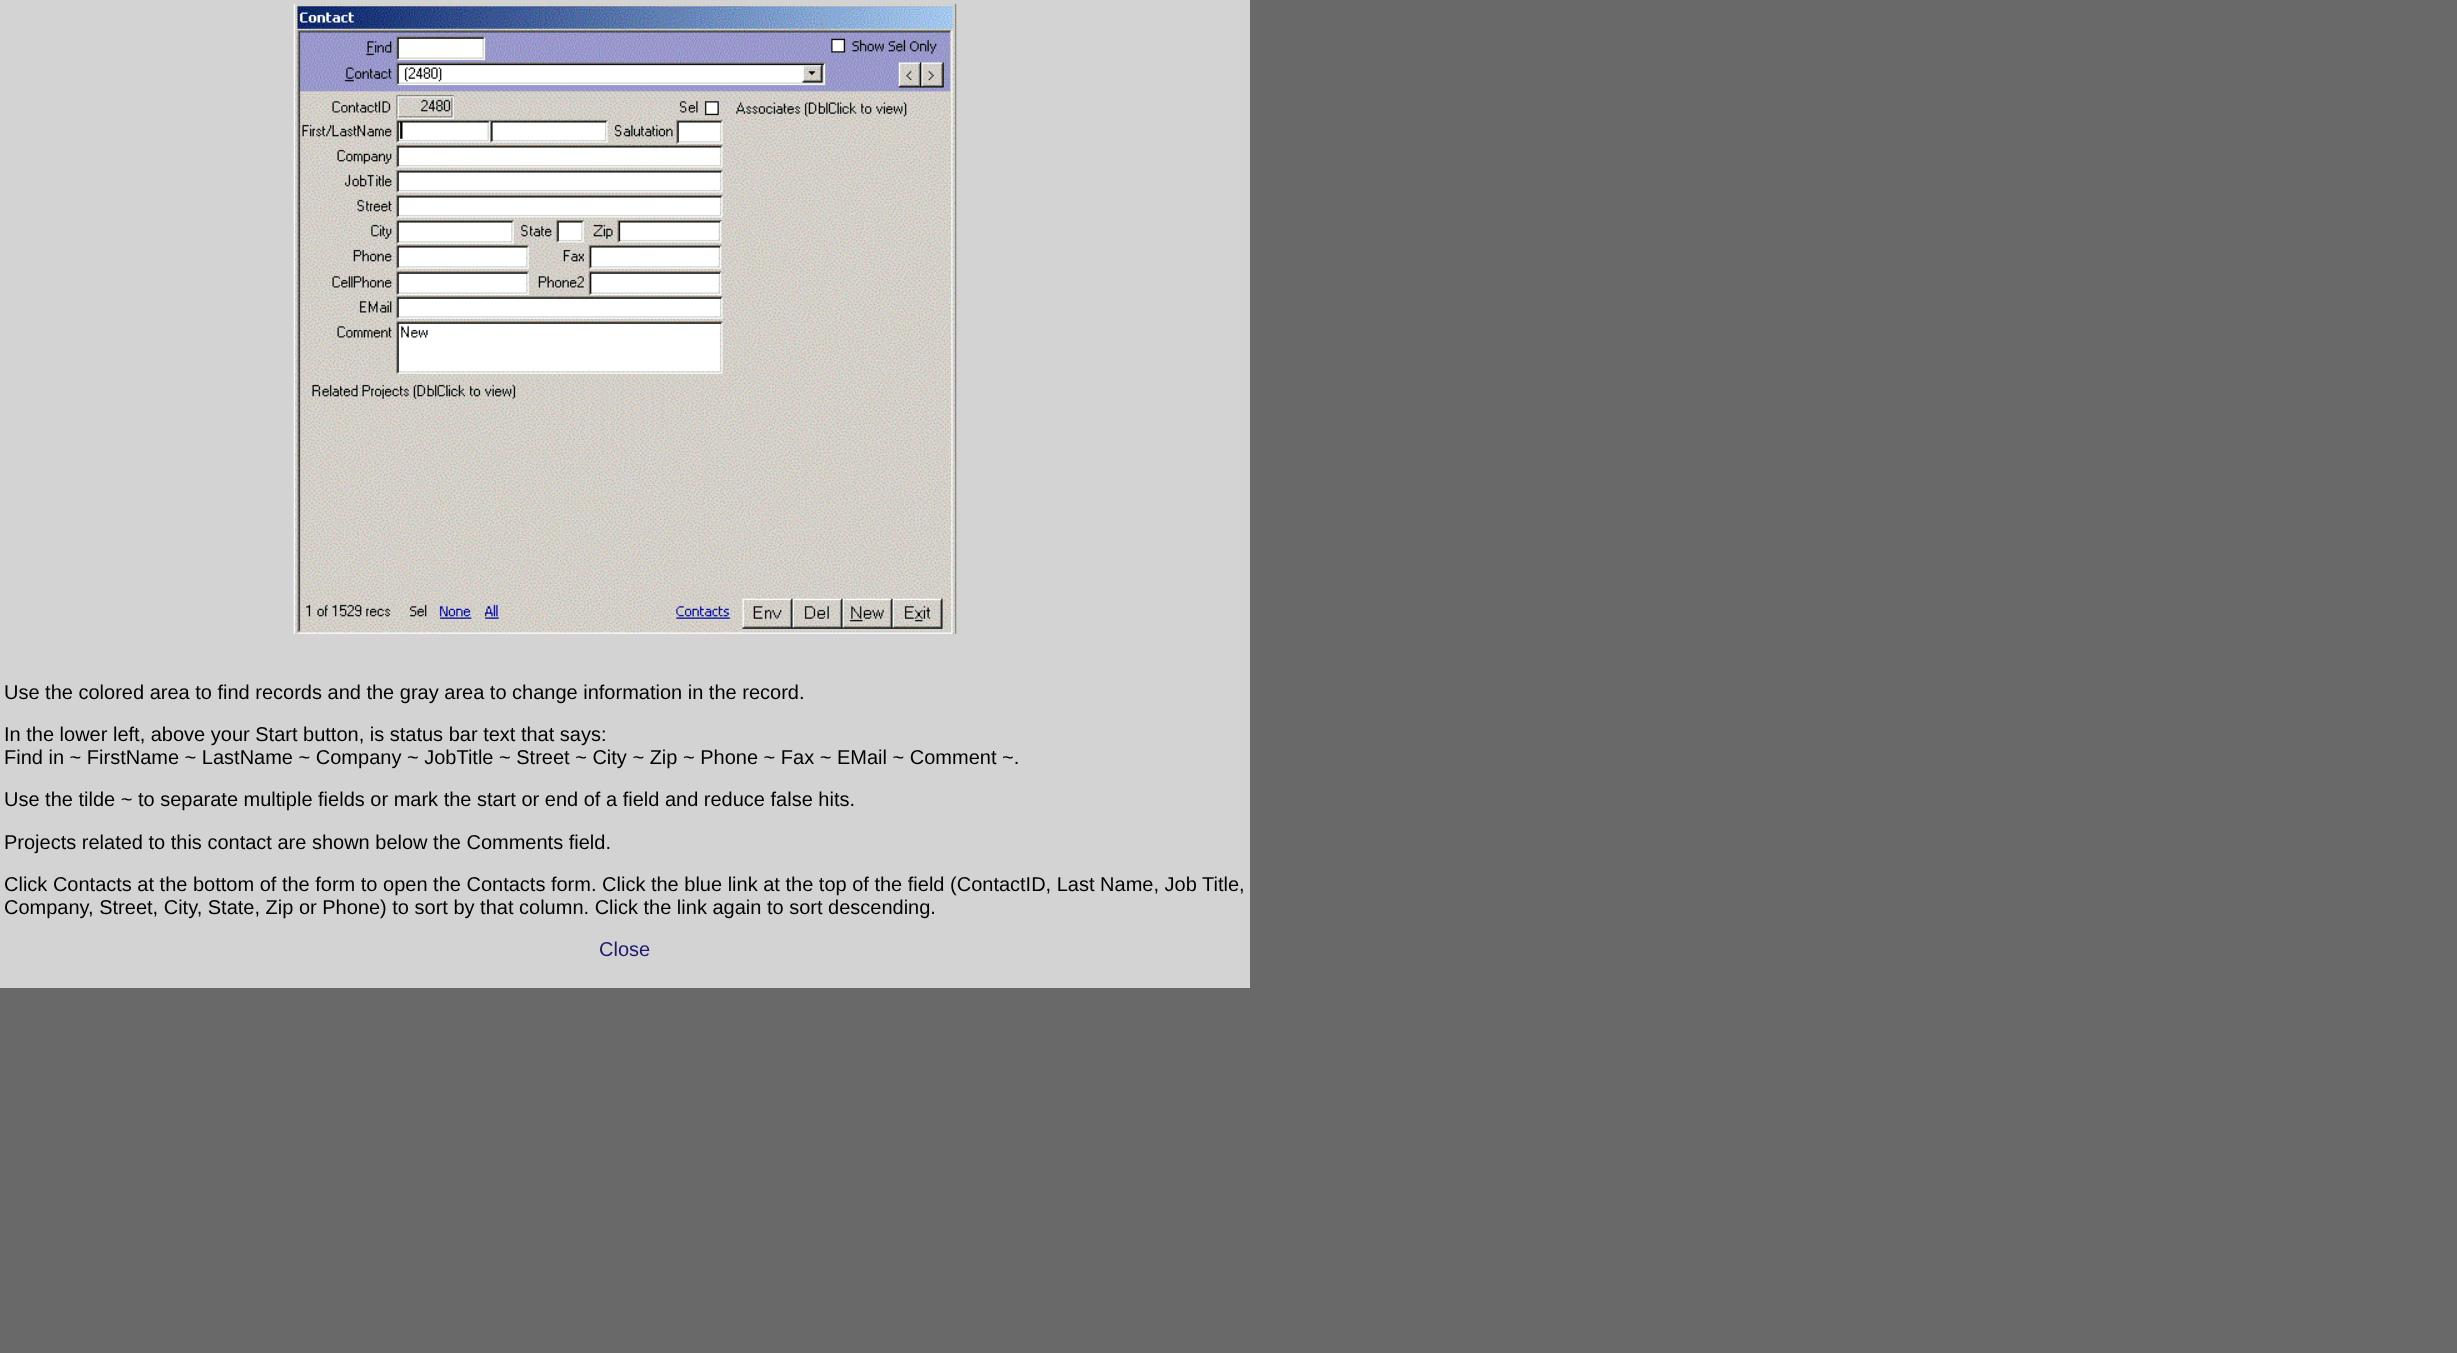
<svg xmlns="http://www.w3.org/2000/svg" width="2457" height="1353">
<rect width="100%" height="100%" fill="#696969"/>
<rect width="1250" height="988" fill="#d3d3d3"/>
<image x="293" y="3" width="664" height="631" href="media/1.png"/>
<text x="4" y="699" style="font-family:Liberation Sans;font-size:20px;fill:#000">Use the colored area to find records and the gray area to change information in the record.</text>
<text x="4" y="741" style="font-family:Liberation Sans;font-size:20px;fill:#000">In the lower left, above your Start button, is status bar text that says:</text>
<text x="4" y="764" style="font-family:Liberation Sans;font-size:20px;fill:#000">Find in ~ FirstName ~ LastName ~ Company ~ JobTitle ~ Street ~ City ~ Zip ~ Phone ~ Fax ~ EMail ~ Comment ~.</text>
<text x="4" y="806" style="font-family:Liberation Sans;font-size:20px;fill:#000">Use the tilde ~ to separate multiple fields or mark the start or end of a field and reduce false hits.</text>
<text x="4" y="849" style="font-family:Liberation Sans;font-size:20px;fill:#000">Projects related to this contact are shown below the Comments field.</text>
<text x="4" y="891" style="font-family:Liberation Sans;font-size:20px;fill:#000">Click Contacts at the bottom of the form to open the Contacts form. Click the blue link at the top of the field (ContactID, Last Name, Job Title,</text>
<text x="4" y="914" style="font-family:Liberation Sans;font-size:20px;fill:#000">Company, Street, City, State, Zip or Phone) to sort by that column. Click the link again to sort descending.</text>
<text x="599" y="956" style="font-family:Liberation Sans;font-size:20px;fill:#191970">Close</text>
</svg>
